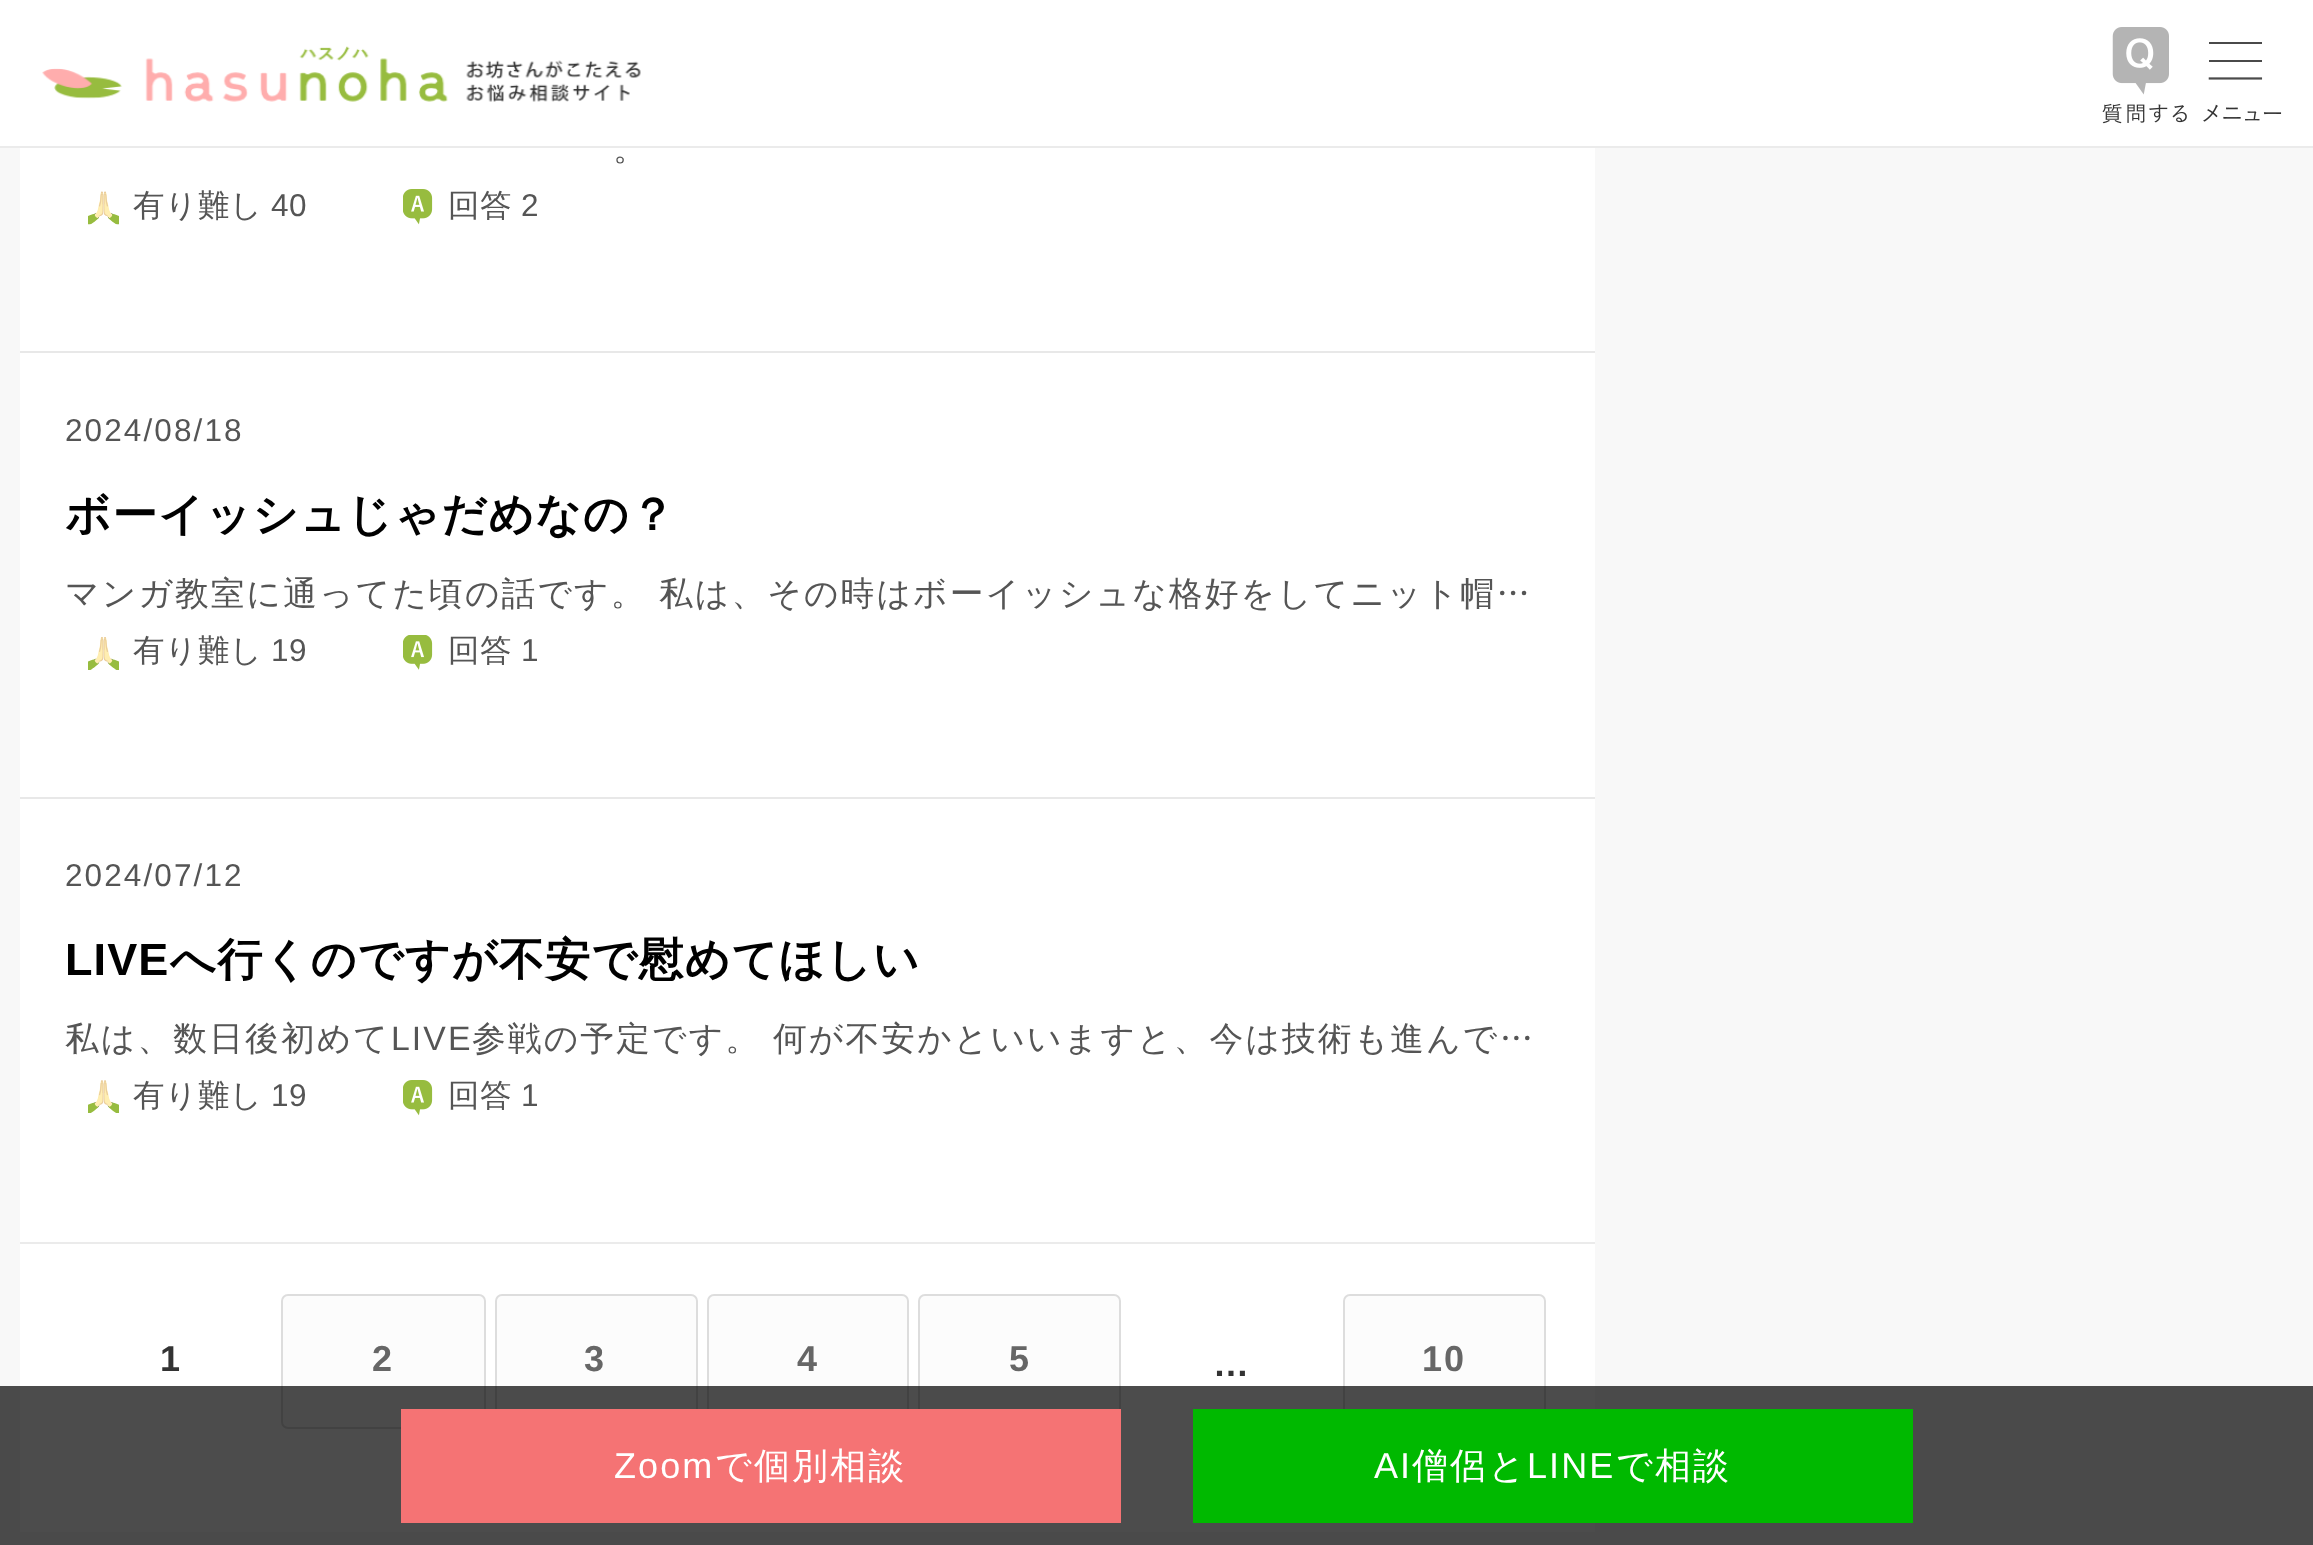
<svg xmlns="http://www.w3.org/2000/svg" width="2313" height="1545">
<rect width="100%" height="100%" fill="#f8f8f8"/>
<rect width="2313" height="146" fill="#fff"/>
<rect y="146" width="2313" height="2" fill="#ebebeb"/>
<image x="42" y="46" width="599" height="56" href="media/1.png"/>
<image x="2102" y="27" width="85" height="97" href="media/2.png"/>
<image x="2203" y="42" width="79" height="80" href="media/3.png"/>
<rect x="20" y="148" width="1575" height="1384" fill="#fff"/>
<text x="613" y="160" style="font-family:WenQuanYi Zen Hei;font-size:33.75px;font-weight:500;letter-spacing:2.1px;fill:#555">。</text>
<image x="88" y="191" width="31" height="34" href="media/4.png"/>
<text x="133" y="216" style="font-family:WenQuanYi Zen Hei;font-size:31.5px;font-weight:500;letter-spacing:0.5px;fill:#555">有り難し</text>
<text x="271" y="216" style="font-family:Liberation Sans;font-size:31.5px;letter-spacing:0.5px;fill:#555">40</text>
<image x="403" y="189" width="30" height="36" href="media/5.png"/>
<text x="448" y="216" style="font-family:WenQuanYi Zen Hei;font-size:31.5px;font-weight:500;letter-spacing:0.5px;fill:#555">回答</text>
<text x="521" y="216" style="font-family:Liberation Sans;font-size:31.5px;letter-spacing:0.5px;fill:#555">2</text>
<rect x="20" y="351" width="1575" height="2" fill="#e8e8e8"/>
<text x="65" y="441" style="font-family:Liberation Sans;font-size:31.5px;letter-spacing:2.1px;fill:#555">2024/08/18</text>
<text x="65" y="530" style="font-family:WenQuanYi Zen Hei;font-size:45px;font-weight:bold;letter-spacing:1.1px;fill:#000">ボーイッシュじゃだめなの？</text>
<text x="65" y="605" style="font-family:WenQuanYi Zen Hei;font-size:33.75px;font-weight:500;letter-spacing:2.1px;fill:#555">マンガ教室に通ってた頃の話です。</text>
<text x="659" y="605" word-spacing="-1" style="font-family:WenQuanYi Zen Hei;font-size:33.75px;font-weight:500;letter-spacing:2.1px;fill:#555">私は、その時はボーイッシュな格好をしてニット帽…</text>
<image x="88" y="637" width="31" height="33" href="media/6.png"/>
<text x="133" y="661" style="font-family:WenQuanYi Zen Hei;font-size:31.5px;font-weight:500;letter-spacing:0.5px;fill:#555">有り難し</text>
<text x="271" y="661" style="font-family:Liberation Sans;font-size:31.5px;letter-spacing:0.5px;fill:#555">19</text>
<image x="403" y="635" width="30" height="35" href="media/7.png"/>
<text x="448" y="661" style="font-family:WenQuanYi Zen Hei;font-size:31.5px;font-weight:500;letter-spacing:0.5px;fill:#555">回答</text>
<text x="521" y="661" style="font-family:Liberation Sans;font-size:31.5px;letter-spacing:0.5px;fill:#555">1</text>
<rect x="20" y="797" width="1575" height="2" fill="#e8e8e8"/>
<text x="65" y="886" style="font-family:Liberation Sans;font-size:31.5px;letter-spacing:2.1px;fill:#555">2024/07/12</text>
<text x="65" y="975" style="font-family:Liberation Sans;font-size:45px;font-weight:bold;letter-spacing:1.1px;fill:#000">LIVE</text>
<text x="170" y="975" style="font-family:WenQuanYi Zen Hei;font-size:45px;font-weight:bold;letter-spacing:1.1px;fill:#000">へ行くのですが不安で慰めてほしい</text>
<text x="65" y="1050" style="font-family:WenQuanYi Zen Hei;font-size:33.75px;font-weight:500;letter-spacing:2.1px;fill:#555">私は、数日後初めて</text>
<text x="391" y="1050" style="font-family:Liberation Sans;font-size:33.75px;letter-spacing:2.1px;fill:#555">LIVE</text>
<text x="472" y="1050" style="font-family:WenQuanYi Zen Hei;font-size:33.75px;font-weight:500;letter-spacing:2.1px;fill:#555">参戦の予定です。</text>
<text x="773" y="1050" style="font-family:WenQuanYi Zen Hei;font-size:33.75px;font-weight:500;letter-spacing:2.1px;fill:#555">何が不安かといいますと、今は技術も進んで…</text>
<image x="88" y="1080" width="31" height="33" href="media/8.png"/>
<text x="133" y="1106" style="font-family:WenQuanYi Zen Hei;font-size:31.5px;font-weight:500;letter-spacing:0.5px;fill:#555">有り難し</text>
<text x="271" y="1106" style="font-family:Liberation Sans;font-size:31.5px;letter-spacing:0.5px;fill:#555">19</text>
<image x="403" y="1080" width="30" height="36" href="media/5.png"/>
<text x="448" y="1106" style="font-family:WenQuanYi Zen Hei;font-size:31.5px;font-weight:500;letter-spacing:0.5px;fill:#555">回答</text>
<text x="521" y="1106" style="font-family:Liberation Sans;font-size:31.5px;letter-spacing:0.5px;fill:#555">1</text>
<rect x="20" y="1242" width="1575" height="2" fill="#ebebeb"/>
<text x="160" y="1371" style="font-family:Liberation Sans;font-size:36px;font-weight:bold;letter-spacing:2.1px;fill:#333">1</text>
<rect x="282" y="1295" width="203" height="133" rx="6" fill="#fcfcfc" stroke="#ddd" stroke-width="2"/>
<text x="372" y="1371" style="font-family:Liberation Sans;font-size:36px;font-weight:bold;letter-spacing:2.1px;fill:#666">2</text>
<rect x="496" y="1295" width="201" height="133" rx="6" fill="#fcfcfc" stroke="#ddd" stroke-width="2"/>
<text x="584" y="1371" style="font-family:Liberation Sans;font-size:36px;font-weight:bold;letter-spacing:2.1px;fill:#666">3</text>
<rect x="708" y="1295" width="200" height="133" rx="6" fill="#fcfcfc" stroke="#ddd" stroke-width="2"/>
<text x="797" y="1371" style="font-family:Liberation Sans;font-size:36px;font-weight:bold;letter-spacing:2.1px;fill:#666">4</text>
<rect x="919" y="1295" width="201" height="133" rx="6" fill="#fcfcfc" stroke="#ddd" stroke-width="2"/>
<text x="1009" y="1371" style="font-family:Liberation Sans;font-size:36px;font-weight:bold;letter-spacing:2.1px;fill:#666">5</text>
<rect x="1344" y="1295" width="201" height="133" rx="6" fill="#fcfcfc" stroke="#ddd" stroke-width="2"/>
<text x="1422" y="1371" style="font-family:Liberation Sans;font-size:36px;font-weight:bold;letter-spacing:2.1px;fill:#666">10</text>
<text x="1213" y="1376" style="font-family:Liberation Sans;font-size:36px;font-weight:bold;letter-spacing:2.1px;fill:#333">…</text>
<rect y="1386" width="2313" height="159" fill="#000000b3"/>
<rect x="401" y="1409" width="720" height="114" fill="#f57374"/>
<text x="614" y="1478" style="font-family:Liberation Sans;font-size:36px;letter-spacing:2.1px;fill:#fff">Zoom</text>
<text x="715" y="1478" style="font-family:WenQuanYi Zen Hei;font-size:36px;font-weight:500;letter-spacing:2.1px;fill:#fff">で個別相談</text>
<rect x="1193" y="1409" width="720" height="114" fill="#00b900"/>
<text x="1374" y="1478" style="font-family:Liberation Sans;font-size:36px;letter-spacing:2.1px;fill:#fff">AI</text>
<text x="1412" y="1478" style="font-family:WenQuanYi Zen Hei;font-size:36px;font-weight:500;letter-spacing:2.1px;fill:#fff">僧侶と</text>
<text x="1527" y="1478" style="font-family:Liberation Sans;font-size:36px;letter-spacing:2.1px;fill:#fff">LINE</text>
<text x="1616" y="1478" style="font-family:WenQuanYi Zen Hei;font-size:36px;font-weight:500;letter-spacing:2.1px;fill:#fff">で相談</text>
</svg>
